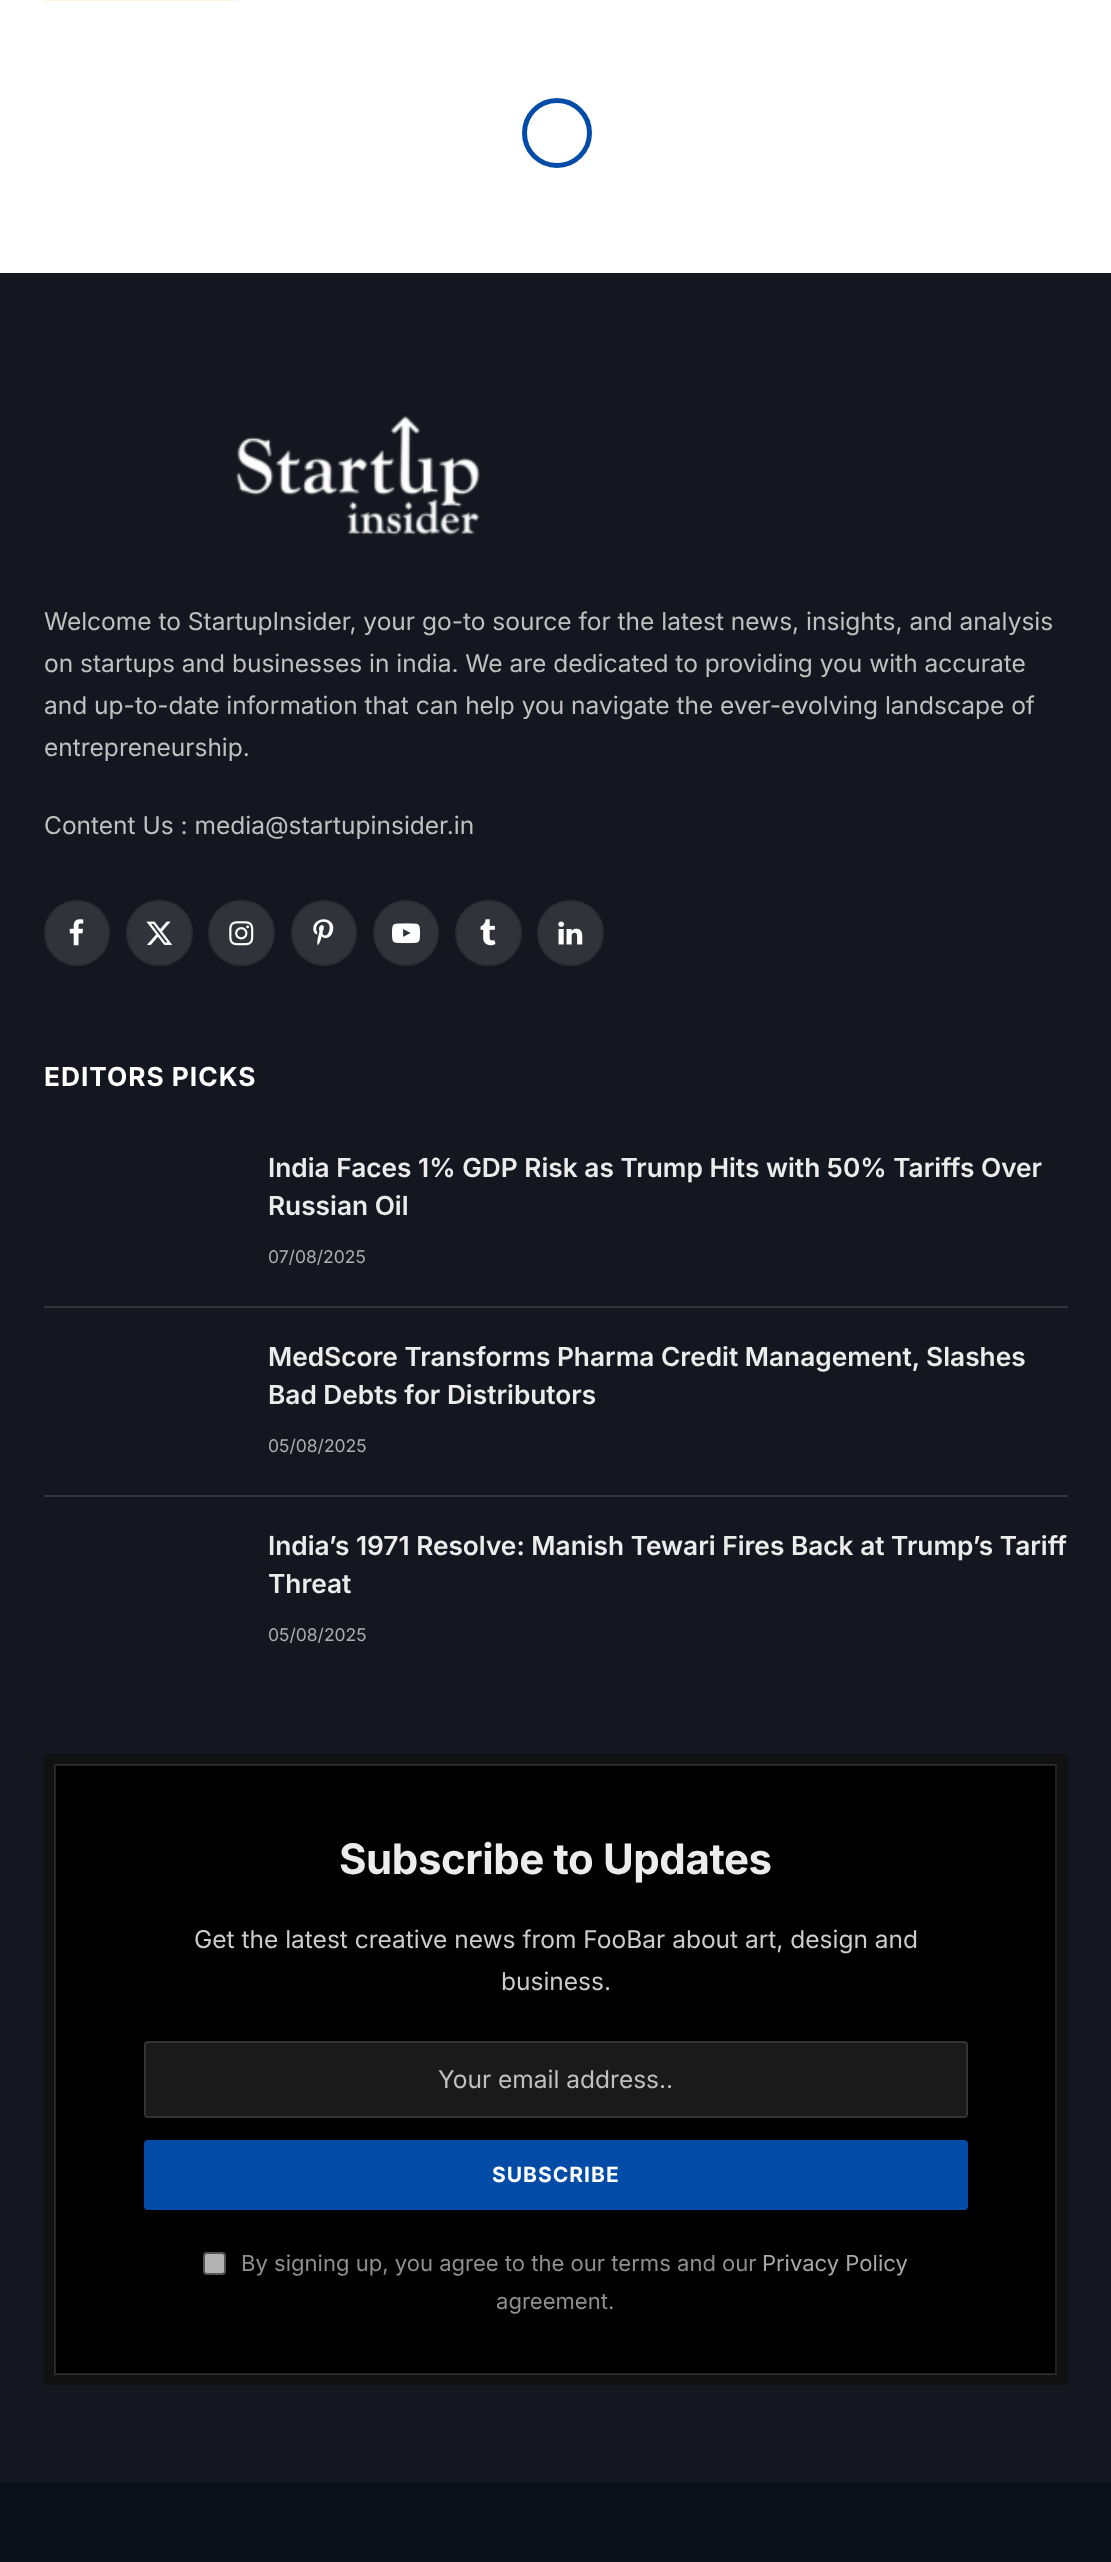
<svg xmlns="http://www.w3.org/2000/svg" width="1111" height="2562">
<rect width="100%" height="100%" fill="#fff"/>
<rect x="44" width="192" height="1" fill="#fff2e1"/>
<circle cx="557" cy="133" r="32.5" fill="none" stroke="#024ca8" stroke-width="5"/>
<rect y="273" width="1111" height="2209" fill="#14171f"/>
<image x="236" y="415" width="244" height="121" href="media/1.png"/>
<text x="44" y="630" style="font-family:Inter;font-size:24.5px;fill:#c0c0c0">Welcome to StartupInsider, your go-to source for the latest news, insights, and analysis</text>
<text x="44" y="672" style="font-family:Inter;font-size:24.5px;fill:#c0c0c0">on startups and businesses in india. We are dedicated to providing you with accurate</text>
<text x="44" y="714" style="font-family:Inter;font-size:24.5px;fill:#c0c0c0">and up-to-date information that can help you navigate the ever-evolving landscape of</text>
<text x="44" y="756" style="font-family:Inter;font-size:24.5px;fill:#c0c0c0">entrepreneurship.</text>
<text x="44" y="834" style="font-family:Inter;font-size:24.5px;fill:#c0c0c0">Content Us : media@startupinsider.in</text>
<circle cx="77" cy="933" r="33" fill="#30333a"/>
<circle cx="77" cy="933" r="32" fill="none" stroke="#00000017" stroke-width="2"/>
<image x="69" y="919" width="15" height="27" href="media/2.png"/>
<rect x="126" y="900" width="67" height="66" rx="33" fill="#30333a"/>
<rect x="127" y="901" width="65" height="64" rx="32" fill="none" stroke="#00000017" stroke-width="2"/>
<image x="146" y="921" width="27" height="24" href="media/3.png"/>
<rect x="208" y="900" width="67" height="66" rx="33" fill="#30333a"/>
<rect x="209" y="901" width="65" height="64" rx="32" fill="none" stroke="#00000017" stroke-width="2"/>
<image x="229" y="921" width="25" height="25" href="media/4.png"/>
<circle cx="324" cy="933" r="33" fill="#30333a"/>
<circle cx="324" cy="933" r="32" fill="none" stroke="#00000017" stroke-width="2"/>
<image x="313" y="919" width="21" height="27" href="media/5.png"/>
<circle cx="406" cy="933" r="33" fill="#30333a"/>
<circle cx="406" cy="933" r="32" fill="none" stroke="#00000017" stroke-width="2"/>
<image x="392" y="923" width="28" height="21" href="media/6.png"/>
<rect x="455" y="900" width="67" height="66" rx="33" fill="#30333a"/>
<rect x="456" y="901" width="65" height="64" rx="32" fill="none" stroke="#00000017" stroke-width="2"/>
<image x="480" y="919" width="16" height="27" href="media/7.png"/>
<rect x="537" y="900" width="67" height="66" rx="33" fill="#30333a"/>
<rect x="538" y="901" width="65" height="64" rx="32" fill="none" stroke="#00000017" stroke-width="2"/>
<image x="558" y="921" width="25" height="24" href="media/8.png"/>
<text x="44" y="1086" style="font-family:Inter;font-size:26.25px;font-weight:bold;letter-spacing:1px;fill:#fff">EDITORS PICKS</text>
<text x="268" y="1177" style="font-family:Inter;font-size:26.25px;font-weight:600;fill:#ececec">India Faces 1% GDP Risk as Trump Hits with 50% Tariffs Over</text>
<text x="268" y="1215" style="font-family:Inter;font-size:26.25px;font-weight:600;fill:#ececec">Russian Oil</text>
<text x="268" y="1263" style="font-family:Inter;font-size:17.5px;fill:#adaeb1">07/08/2025</text>
<rect x="44" y="1306" width="1024" height="2" fill="#33353c"/>
<text x="268" y="1366" style="font-family:Inter;font-size:26.25px;font-weight:600;fill:#ececec">MedScore Transforms Pharma Credit Management, Slashes</text>
<text x="268" y="1404" style="font-family:Inter;font-size:26.25px;font-weight:600;fill:#ececec">Bad Debts for Distributors</text>
<text x="268" y="1452" style="font-family:Inter;font-size:17.5px;fill:#adaeb1">05/08/2025</text>
<rect x="44" y="1495" width="1024" height="2" fill="#33353c"/>
<text x="268" y="1555" style="font-family:Inter;font-size:26.25px;font-weight:600;fill:#ececec">India’s 1971 Resolve: Manish Tewari Fires Back at Trump’s Tariff</text>
<text x="268" y="1593" style="font-family:Inter;font-size:26.25px;font-weight:600;fill:#ececec">Threat</text>
<text x="268" y="1641" style="font-family:Inter;font-size:17.5px;fill:#adaeb1">05/08/2025</text>
<rect x="49.5" y="1759.5" width="1013" height="620" fill="#000" stroke="#111" stroke-width="11"/>
<rect x="55" y="1765" width="1001" height="609" fill="none" stroke="#ffffff21" stroke-width="2"/>
<text x="339" y="1874" style="font-family:Inter;font-size:42px;font-weight:bold;letter-spacing:-0.4px;fill:#ececec">Subscribe to Updates</text>
<text x="194" y="1948" style="font-family:Inter;font-size:24.5px;fill:#ccc">Get the latest creative news from FooBar about art, design and</text>
<text x="501" y="1990" style="font-family:Inter;font-size:24.5px;fill:#ccc">business.</text>
<rect x="145" y="2042" width="822" height="75" rx="3" fill="#1a1a1a" stroke="#333" stroke-width="2"/>
<text x="438" y="2088" style="font-family:Inter;font-size:24.5px;fill:#c0c0c0">Your email address..</text>
<rect x="144" y="2140" width="824" height="70" rx="4" fill="#024ca8"/>
<text x="492" y="2182" style="font-family:Inter;font-size:21px;font-weight:bold;letter-spacing:1px;fill:#fff">SUBSCRIBE</text>
<rect x="204" y="2253" width="21" height="21" rx="3" fill="#b3b3b3" stroke="#535353" stroke-width="2"/>
<text x="241" y="2271" style="font-family:Inter;font-size:22.05px;fill:#8f8f8f">By signing up, you agree to the our terms and our</text>
<text x="762" y="2271" style="font-family:Inter;font-size:22.05px;fill:#a8a8a8">Privacy Policy</text>
<text x="496" y="2309" style="font-family:Inter;font-size:22.05px;fill:#8f8f8f">agreement.</text>
<rect y="2482" width="1111" height="80" fill="#0b101b"/>
</svg>
